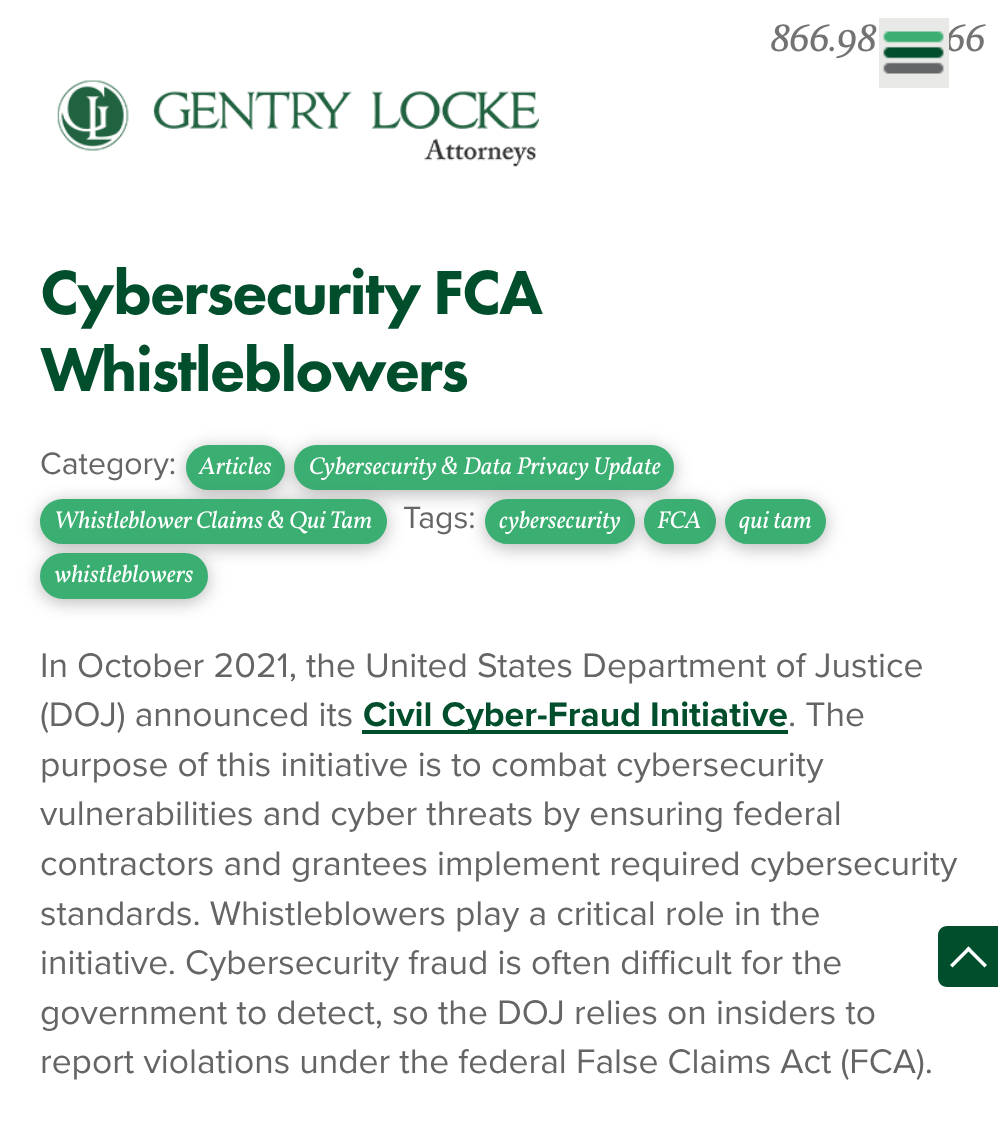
<svg xmlns="http://www.w3.org/2000/svg" width="998" height="1144">
<rect width="100%" height="100%" fill="#fff"/>
<text x="945" y="51" style="font-family:Vollkorn;font-size:42px;font-style:italic;fill:#737373">66</text>
<rect x="879" y="18" width="70" height="70" fill="#e9e9e7"/>
<image x="883" y="31" width="61" height="43" href="media/1.png"/>
<text x="770" y="51" style="font-family:Vollkorn;font-size:42px;font-style:italic;fill:#737373">866.98</text>
<image x="57" y="80" width="482" height="87" href="media/2.png"/>
<text x="40" y="314" style="font-family:Futura PT;font-size:64.5px;font-weight:900;letter-spacing:-1.9px;fill:#004e2c">Cybersecurity FCA</text>
<text x="40" y="391" style="font-family:Futura PT;font-size:64.5px;font-weight:900;letter-spacing:-1.9px;fill:#004e2c">Whistleblowers</text>
<text x="40" y="474" style="font-family:Proxima Nova;font-size:32px;fill:#646567">Category:</text>
<rect x="186" y="448" width="99" height="46" rx="23" fill="#64656775" filter="blur(9px)"/>
<rect x="188.5" y="447.5" width="94" height="40" rx="20" fill="#3bae72" stroke="#3bae72" stroke-width="5"/>
<text x="199" y="474" style="font-family:Vollkorn;font-size:24.5px;font-style:italic;fill:#fff">Articles</text>
<rect x="294" y="448" width="380" height="46" rx="23" fill="#64656775" filter="blur(9px)"/>
<rect x="296.5" y="447.5" width="375" height="40" rx="20" fill="#3bae72" stroke="#3bae72" stroke-width="5"/>
<text x="309" y="474" style="font-family:Vollkorn;font-size:24.5px;font-style:italic;fill:#fff">Cybersecurity &amp; Data Privacy Update</text>
<rect x="40" y="502" width="347" height="46" rx="23" fill="#64656775" filter="blur(9px)"/>
<rect x="42.5" y="501.5" width="342" height="40" rx="20" fill="#3bae72" stroke="#3bae72" stroke-width="5"/>
<text x="54" y="528" style="font-family:Vollkorn;font-size:24.5px;font-style:italic;fill:#fff">Whistleblower Claims &amp; Qui Tam</text>
<text x="403" y="528" style="font-family:Proxima Nova;font-size:32px;fill:#646567">Tags:</text>
<rect x="485" y="502" width="150" height="46" rx="23" fill="#64656775" filter="blur(9px)"/>
<rect x="487.5" y="501.5" width="145" height="40" rx="20" fill="#3bae72" stroke="#3bae72" stroke-width="5"/>
<text x="499" y="528" style="font-family:Vollkorn;font-size:24.5px;font-style:italic;fill:#fff">cybersecurity</text>
<rect x="644" y="502" width="72" height="46" rx="23" fill="#64656775" filter="blur(9px)"/>
<rect x="646.5" y="501.5" width="67" height="40" rx="20" fill="#3bae72" stroke="#3bae72" stroke-width="5"/>
<text x="657" y="528" style="font-family:Vollkorn;font-size:24.5px;font-style:italic;fill:#fff">FCA</text>
<rect x="725" y="502" width="101" height="46" rx="23" fill="#64656775" filter="blur(9px)"/>
<rect x="727.5" y="501.5" width="96" height="40" rx="20" fill="#3bae72" stroke="#3bae72" stroke-width="5"/>
<text x="739" y="528" style="font-family:Vollkorn;font-size:24.5px;font-style:italic;fill:#fff">qui tam</text>
<rect x="40" y="557" width="168" height="45" rx="22.5" fill="#64656775" filter="blur(9px)"/>
<rect x="42.5" y="555.5" width="163" height="41" rx="20.5" fill="#3bae72" stroke="#3bae72" stroke-width="5"/>
<text x="54" y="582" style="font-family:Vollkorn;font-size:24.5px;font-style:italic;fill:#fff">whistleblowers</text>
<text x="40" y="677" style="font-family:Proxima Nova;font-size:35.4px;fill:#646567">In October 2021, the United States Department of Justice</text>
<text x="40" y="726" style="font-family:Proxima Nova;font-size:35.4px;fill:#646567">(DOJ) announced its</text>
<rect x="362" y="730" width="426" height="4" fill="#004e2c"/>
<text x="363" y="726" style="font-family:Proxima Nova;font-size:35.4px;font-weight:bold;fill:#004e2c">Civil Cyber-Fraud Initiative</text>
<text x="788" y="726" style="font-family:Proxima Nova;font-size:35.4px;fill:#646567">. The</text>
<text x="40" y="776" style="font-family:Proxima Nova;font-size:35.4px;fill:#646567">purpose of this initiative is to combat cybersecurity</text>
<text x="40" y="825" style="font-family:Proxima Nova;font-size:35.4px;fill:#646567">vulnerabilities and cyber threats by ensuring federal</text>
<text x="40" y="875" style="font-family:Proxima Nova;font-size:35.4px;fill:#646567">contractors and grantees implement required cybersecurity</text>
<text x="40" y="925" style="font-family:Proxima Nova;font-size:35.4px;fill:#646567">standards. Whistleblowers play a critical role in the</text>
<text x="40" y="974" style="font-family:Proxima Nova;font-size:35.4px;fill:#646567">initiative. Cybersecurity fraud is often difficult for the</text>
<text x="40" y="1024" style="font-family:Proxima Nova;font-size:35.4px;fill:#646567">government to detect, so the DOJ relies on insiders to</text>
<text x="40" y="1073" style="font-family:Proxima Nova;font-size:35.4px;fill:#646567">report violations under the federal False Claims Act (FCA).</text>
<path d="M947 926h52v61h-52c-5 0-9-4-9-9v-43c0-5 4-9 9-9z" fill="#004e2c"/>
<path d="M952.5 967.5l-2.5-2.5l18.5-18.5l2.5 2.5z" fill="#fff"/>
<path d="M984.5 967.5l-18.5-18.5l2.5-2.5l18.5 18.5z" fill="#fff"/>
</svg>
